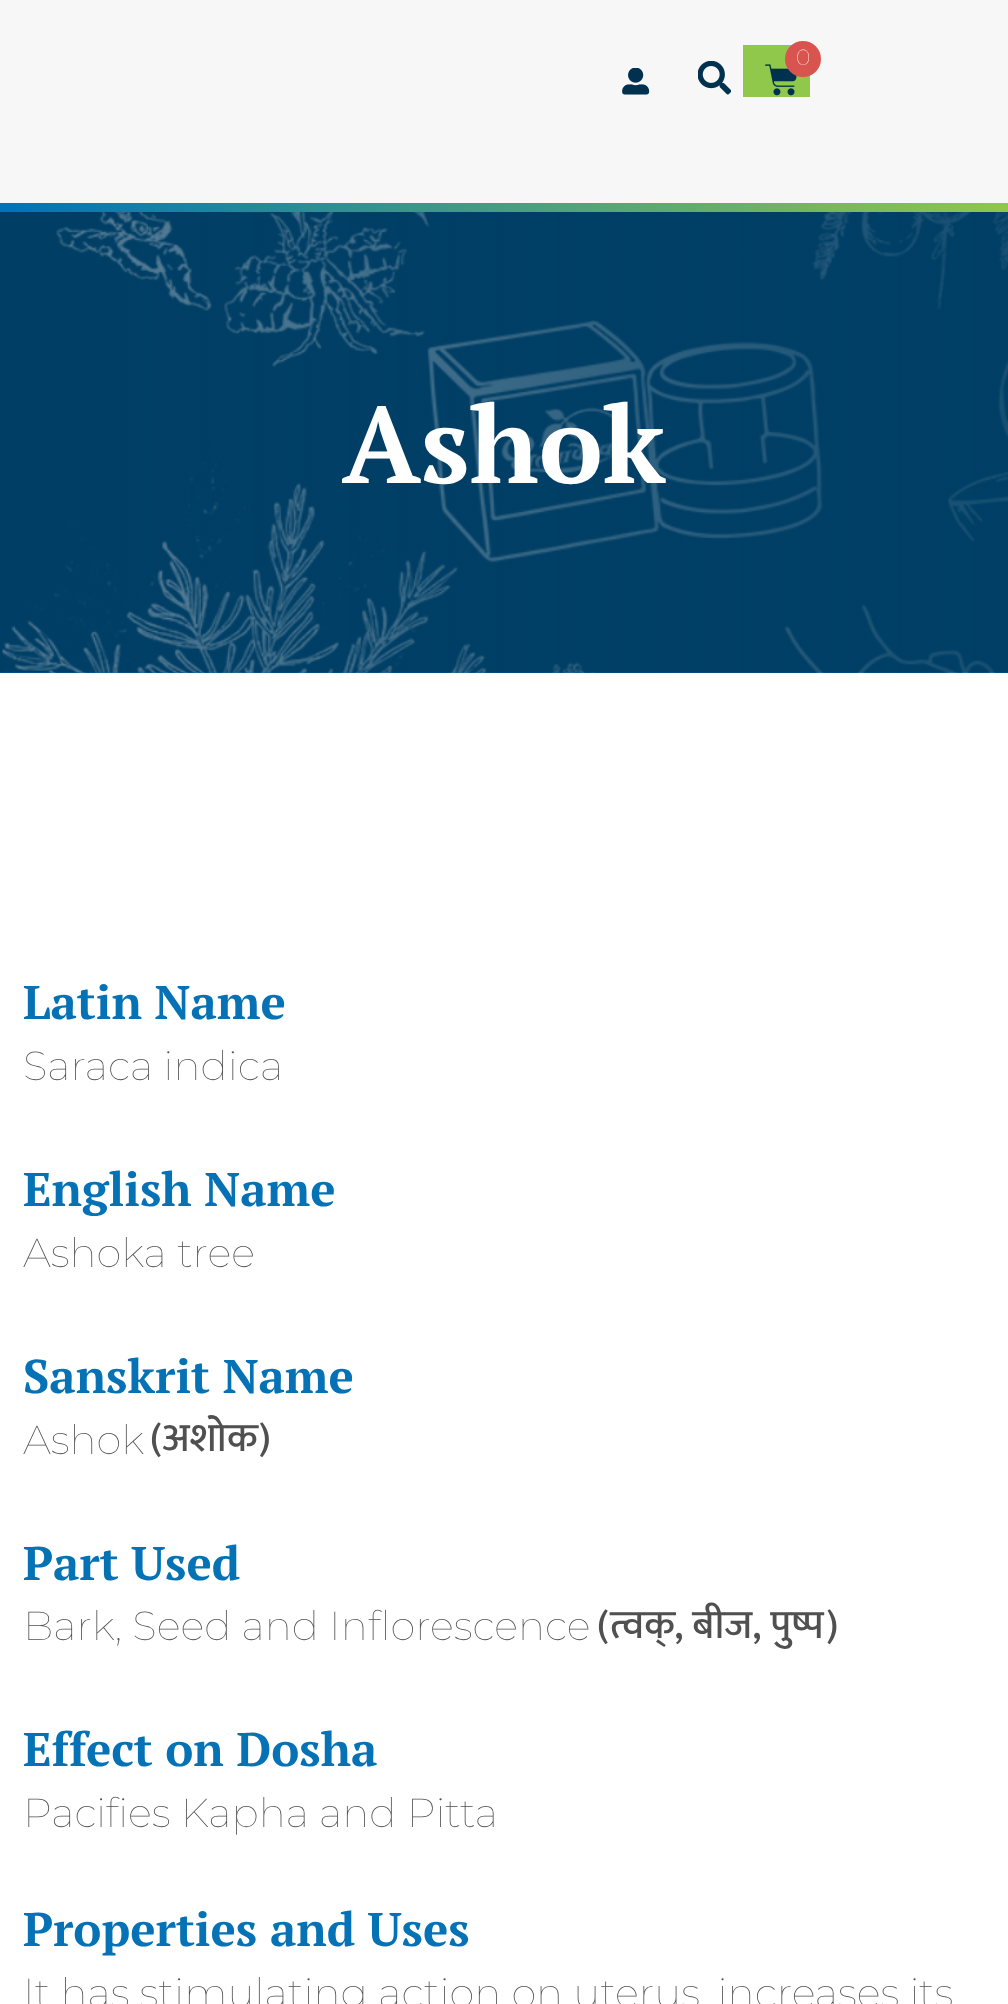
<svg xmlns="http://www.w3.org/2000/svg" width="1008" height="2004">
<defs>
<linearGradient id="g1" gradientUnits="userSpaceOnUse" x1="0" y1="207" x2="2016" y2="207"><stop offset="0" stop-color="#0073b7"/><stop offset="0.5" stop-color="#8fc74a"/><stop offset="1" stop-color="#f4f7fa"/></linearGradient>
</defs>
<rect width="100%" height="100%" fill="#fff"/>
<rect width="1008" height="203" fill="#f7f7f7"/>
<rect x="743" y="45" width="67" height="52" fill="#90c84c"/>
<image x="765" y="64" width="32" height="32" href="media/1.png"/>
<circle cx="803" cy="59" r="18" fill="#d9534f"/>
<text x="796" y="65" style="font-family:Montserrat;font-size:22px;font-weight:100;fill:#fff">0</text>
<image x="622" y="68" width="28" height="27" href="media/2.png"/>
<image x="698" y="61" width="33" height="34" href="media/3.png"/>
<rect y="203" width="1008" height="9" fill="url(#g1)"/>
<rect y="672" width="1008" height="1" fill="#0572b6"/>
<image x="0" y="212" width="1008" height="461" href="media/4.png"/>
<text x="342" y="483" style="font-family:PT Serif;font-size:108px;font-weight:bold;fill:#fff">Ashok</text>
<text x="23" y="1019" style="font-family:PT Serif;font-size:47.25px;font-weight:bold;fill:#0572b6">Latin Name</text>
<text x="23" y="1080" style="font-family:Montserrat;font-size:40.5px;font-weight:100;fill:#505050">Saraca indica</text>
<text x="23" y="1206" style="font-family:PT Serif;font-size:47.25px;font-weight:bold;fill:#0572b6">English Name</text>
<text x="23" y="1267" style="font-family:Montserrat;font-size:40.5px;font-weight:100;fill:#505050">Ashoka tree</text>
<text x="23" y="1393" style="font-family:PT Serif;font-size:47.25px;font-weight:bold;fill:#0572b6">Sanskrit Name</text>
<text x="23" y="1454" style="font-family:Montserrat;font-size:40.5px;font-weight:100;fill:#505050">Ashok</text>
<text x="150" y="1451" style="font-family:Mukta;font-size:40.5px;font-weight:500;fill:#505050">(अशोक)</text>
<text x="23" y="1580" style="font-family:PT Serif;font-size:47.25px;font-weight:bold;fill:#0572b6">Part Used</text>
<text x="23" y="1640" style="font-family:Montserrat;font-size:40.5px;font-weight:100;fill:#505050">Bark, Seed and Inflorescence</text>
<text x="597" y="1638" style="font-family:Mukta;font-size:40.5px;font-weight:500;fill:#505050">(त्वक्, बीज, पुष्प)</text>
<text x="23" y="1766" style="font-family:PT Serif;font-size:47.25px;font-weight:bold;fill:#0572b6">Effect on Dosha</text>
<text x="23" y="1827" style="font-family:Montserrat;font-size:40.5px;font-weight:100;fill:#505050">Pacifies Kapha and Pitta</text>
<text x="23" y="1946" style="font-family:PT Serif;font-size:47.25px;font-weight:bold;fill:#0572b6">Properties and Uses</text>
<text x="23" y="2007" style="font-family:Montserrat;font-size:40.5px;font-weight:100;fill:#505050">It has stimulating action on uterus, increases its</text>
</svg>
